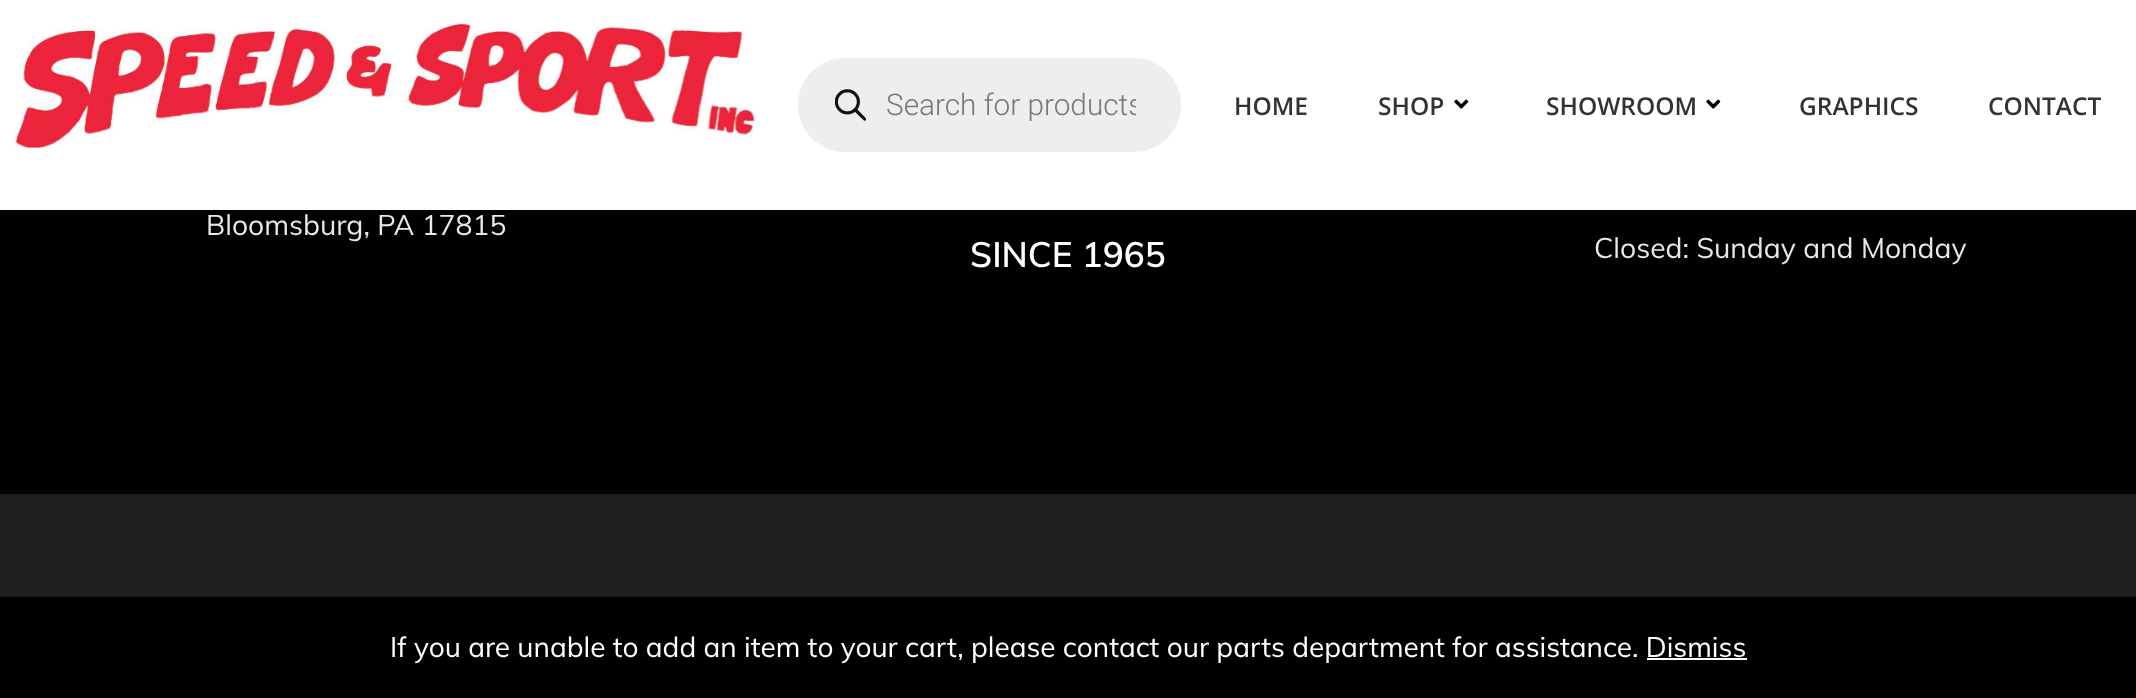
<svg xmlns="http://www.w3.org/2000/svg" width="2136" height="698">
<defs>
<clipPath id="clip1"><rect x="886" y="88" width="250" height="35"/></clipPath>
</defs>
<rect width="100%" height="100%" fill="#000"/>
<rect width="2136" height="210" fill="#fff"/>
<image x="13" y="22" width="747" height="126" href="media/1.png"/>
<rect x="798" y="58" width="383" height="94" rx="47" fill="#eee"/>
<image x="835" y="89" width="31" height="32" href="media/2.png"/>
<g clip-path="url(#clip1)">
<text x="886" y="115" style="font-family:Roboto;font-size:29.75px;font-weight:300;fill:#777">Search for products</text>
</g>
<text x="1234" y="115" style="font-family:Open Sans;font-size:24.5px;font-weight:600;fill:#333">HOME</text>
<text x="1378" y="115" style="font-family:Open Sans;font-size:24.5px;font-weight:600;fill:#333">SHOP</text>
<image x="1454" y="99" width="15" height="10" href="media/3.png"/>
<text x="1546" y="115" style="font-family:Open Sans;font-size:24.5px;font-weight:600;fill:#333">SHOWROOM</text>
<image x="1706" y="99" width="15" height="10" href="media/3.png"/>
<text x="1799" y="115" style="font-family:Open Sans;font-size:24.5px;font-weight:600;fill:#333">GRAPHICS</text>
<text x="1988" y="115" style="font-family:Open Sans;font-size:24.5px;font-weight:600;fill:#333">CONTACT</text>
<text x="206" y="235" style="font-family:Muli;font-size:28.25px;fill:#e8e8e8">Bloomsburg, PA 17815</text>
<text x="970" y="267" style="font-family:Muli;font-size:35px;font-weight:600;fill:#fff">SINCE 1965</text>
<text x="1594" y="258" style="font-family:Muli;font-size:28.25px;fill:#e8e8e8">Closed: Sunday and Monday</text>
<rect y="494" width="2136" height="103" fill="#1f1f1f"/>
<text x="390" y="657" style="font-family:Muli;font-size:28px;fill:#fff">If you are unable to add an item to your cart, please contact our parts department for assistance. Dismiss</text>
<rect x="1647" y="658" width="100" height="2" fill="#fcfbfe"/>
</svg>
